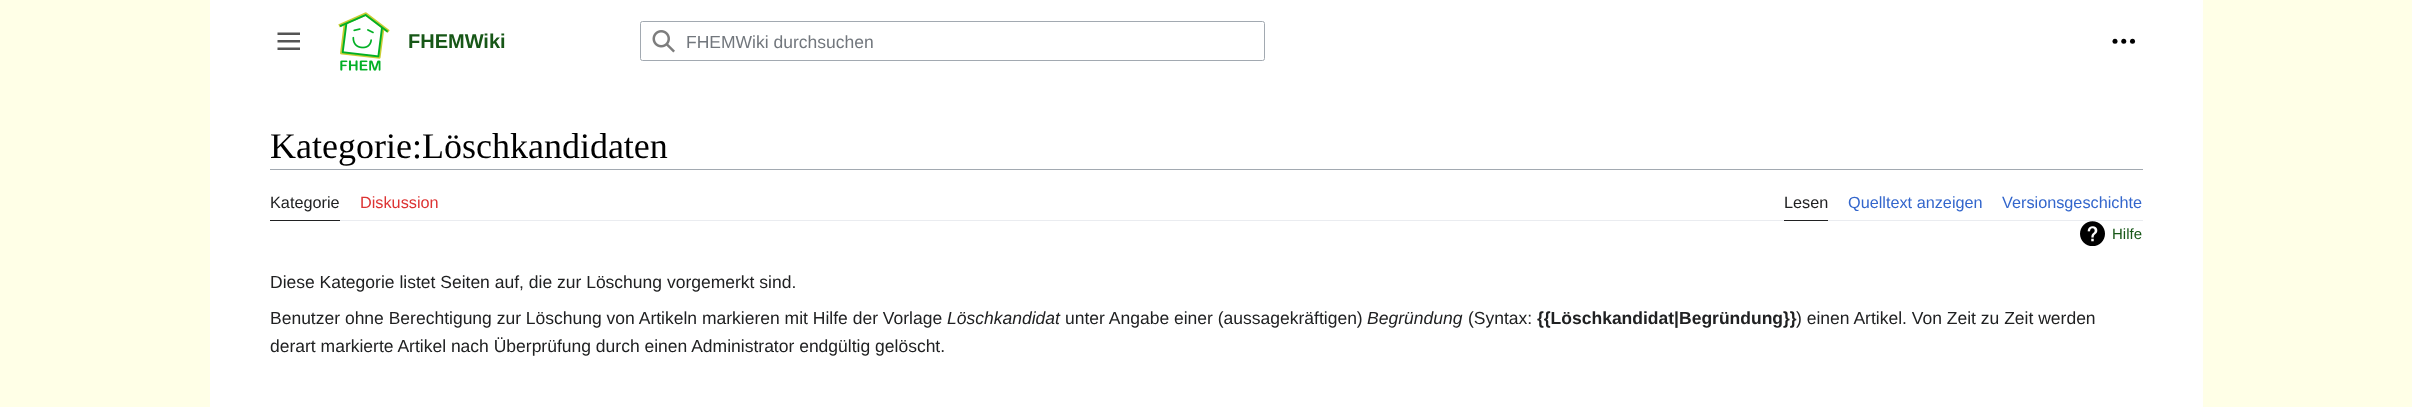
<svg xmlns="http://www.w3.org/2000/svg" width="2412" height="407">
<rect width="100%" height="100%" fill="#ffffe7"/>
<rect x="210" width="1993" height="407" fill="#fff"/>
<image x="277" y="32" width="23" height="18" href="media/1.png"/>
<image x="338" y="12" width="52" height="59" href="media/2.png"/>
<text x="408" y="48" style="font-family:Liberation Sans;font-size:20px;font-weight:bold;fill:#175717">FHEMWiki</text>
<rect x="640.5" y="21.5" width="624" height="39" rx="2" fill="none" stroke="#a2a9b1"/>
<image x="652" y="30" width="23" height="23" href="media/3.png"/>
<text x="686" y="48" style="font-family:Liberation Sans;font-size:17.5px;fill:#72777d">FHEMWiki durchsuchen</text>
<image x="2112" y="38" width="24" height="6" href="media/4.png"/>
<rect x="270" y="169" width="1873" height="1" fill="#a2a9b1"/>
<text x="270" y="158" style="font-family:Liberation Serif;font-size:36px;fill:#000">Kategorie:Löschkandidaten</text>
<rect x="340" y="220" width="1803" height="1" fill="#eaecf0"/>
<rect x="270" y="220" width="70" height="1" fill="#202122"/>
<text x="270" y="208" style="font-family:Liberation Sans;font-size:16.25px;fill:#202122">Kategorie</text>
<text x="360" y="208" style="font-family:Liberation Sans;font-size:16.25px;fill:#d33">Diskussion</text>
<rect x="1784" y="220" width="44" height="1" fill="#202122"/>
<text x="1784" y="208" style="font-family:Liberation Sans;font-size:16.25px;fill:#202122">Lesen</text>
<text x="1848" y="208" style="font-family:Liberation Sans;font-size:16.25px;fill:#36c">Quelltext anzeigen</text>
<text x="2002" y="208" style="font-family:Liberation Sans;font-size:16.25px;fill:#36c">Versionsgeschichte</text>
<image x="2080" y="221" width="25" height="25" href="media/5.png"/>
<text x="2112" y="239" style="font-family:Liberation Sans;font-size:15px;fill:#175717">Hilfe</text>
<text x="270" y="288" style="font-family:Liberation Sans;font-size:17.5px;fill:#202122">Diese Kategorie listet Seiten auf, die zur Löschung vorgemerkt sind.</text>
<text x="270" y="324" style="font-family:Liberation Sans;font-size:17.5px;fill:#202122">Benutzer ohne Berechtigung zur Löschung von Artikeln markieren mit Hilfe der Vorlage</text>
<text x="947" y="324" style="font-family:Liberation Sans;font-size:17.5px;font-style:italic;fill:#202122">Löschkandidat</text>
<text x="1065" y="324" style="font-family:Liberation Sans;font-size:17.5px;fill:#202122">unter Angabe einer (aussagekräftigen)</text>
<text x="1367" y="324" style="font-family:Liberation Sans;font-size:17.5px;font-style:italic;fill:#202122">Begründung</text>
<text x="1468" y="324" style="font-family:Liberation Sans;font-size:17.5px;fill:#202122">(Syntax:</text>
<text x="1537" y="324" style="font-family:Liberation Sans;font-size:17.5px;font-weight:bold;fill:#202122">{{Löschkandidat|Begründung}}</text>
<text x="1796" y="324" style="font-family:Liberation Sans;font-size:17.5px;fill:#202122">) einen Artikel. Von Zeit zu Zeit werden</text>
<text x="270" y="352" style="font-family:Liberation Sans;font-size:17.5px;fill:#202122">derart markierte Artikel nach Überprüfung durch einen Administrator endgültig gelöscht.</text>
</svg>
